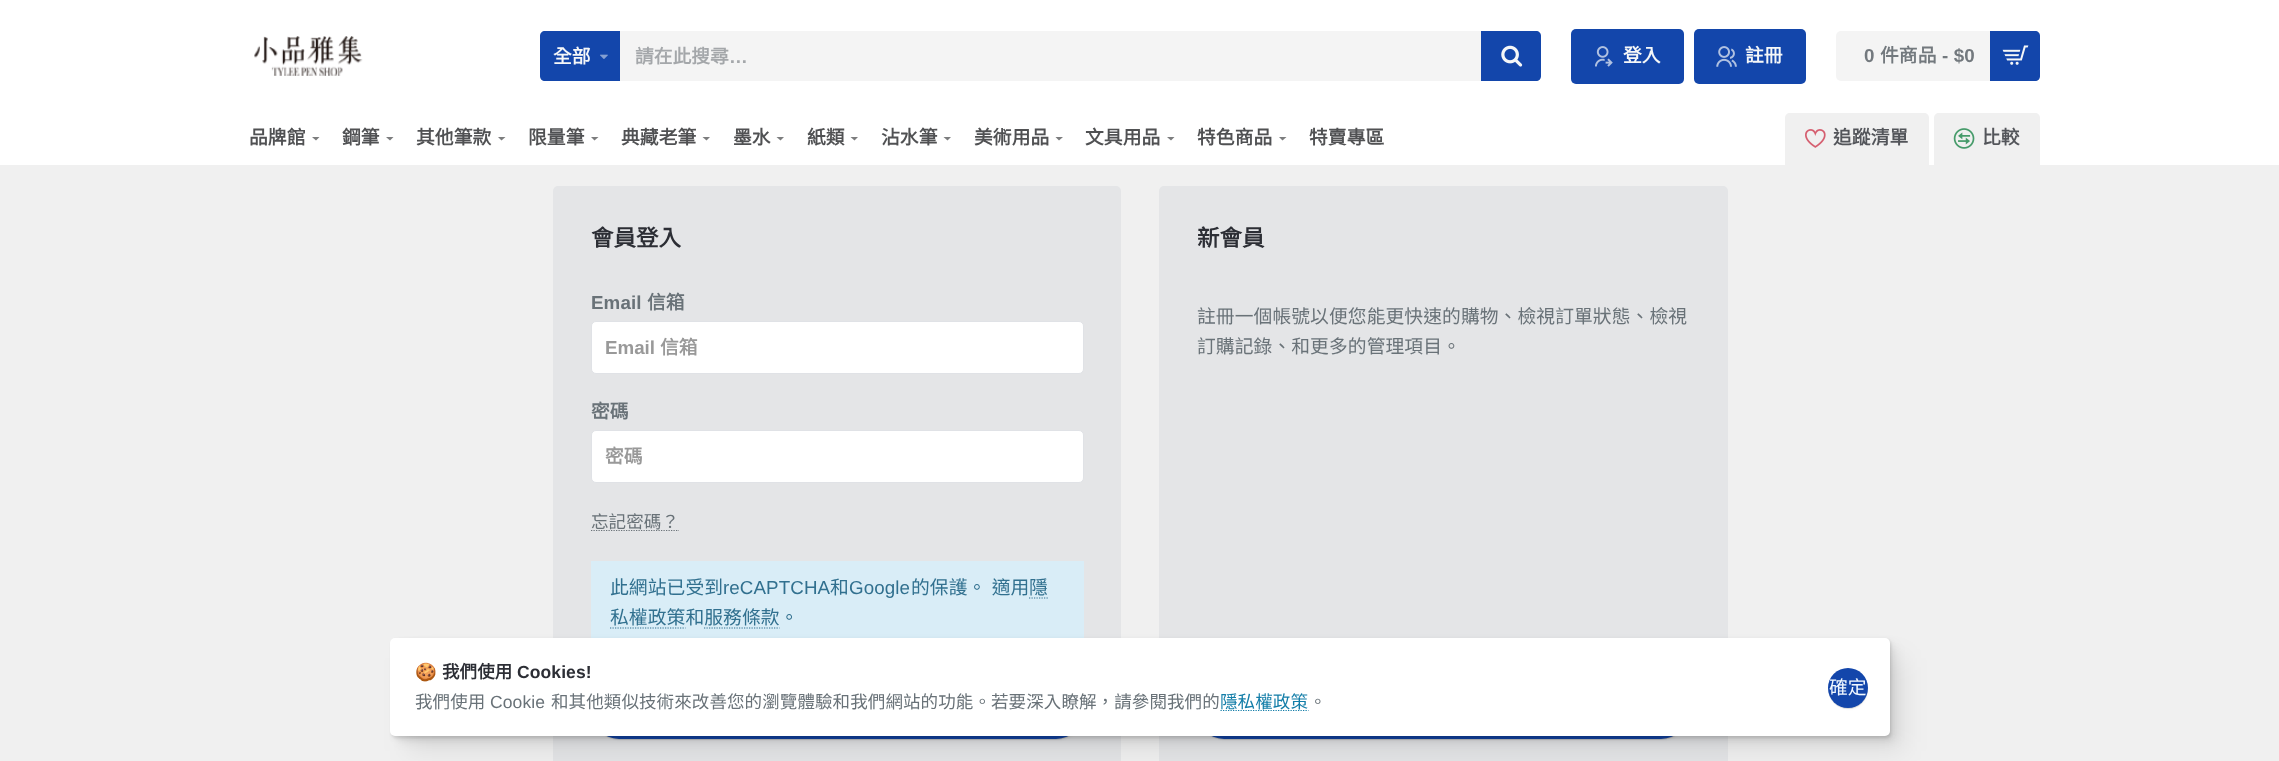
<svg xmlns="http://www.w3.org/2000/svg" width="2279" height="761">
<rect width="100%" height="100%" fill="#f0f0f0"/>
<rect width="2279" height="165" fill="#fff"/>
<image x="254" y="36" width="109" height="40" href="media/1.png"/>
<path d="M545 31h75v50h-75c-3 0-5-2-5-5v-40c0-3 2-5 5-5z" fill="#1346ab"/>
<text x="553" y="63" style="font-family:Noto Sans CJK TC;font-size:18.75px;font-weight:bold;letter-spacing:0.1px;fill:#f5f7f8">全部</text>
<image x="600" y="54" width="8" height="5" href="media/2.png"/>
<rect x="620" y="31" width="861" height="50" fill="#f4f4f4"/>
<text x="635" y="63" style="font-family:Noto Sans CJK TC;font-size:18.75px;font-weight:bold;fill:#a4a7aa">請在此搜尋</text>
<text x="729" y="63" style="font-family:Liberation Sans;font-size:18.75px;font-weight:bold;fill:#a4a7aa">…</text>
<path d="M1481 31h55c3 0 5 2 5 5v40c0 3-2 5-5 5h-55z" fill="#1346ab"/>
<image x="1501" y="45" width="22" height="22" href="media/3.png"/>
<rect x="1571" y="29" width="113" height="55" rx="5" fill="#1346ab"/>
<image x="1595" y="46" width="18" height="21" href="media/4.png"/>
<text x="1623" y="62" style="font-family:Noto Sans CJK TC;font-size:18.75px;font-weight:bold;letter-spacing:0.1px;fill:#f5f7f8">登入</text>
<rect x="1694" y="29" width="112" height="55" rx="5" fill="#1346ab"/>
<image x="1716" y="46" width="21" height="21" href="media/5.png"/>
<text x="1745" y="62" style="font-family:Noto Sans CJK TC;font-size:18.75px;font-weight:bold;letter-spacing:0.1px;fill:#f5f7f8">註冊</text>
<rect x="1836" y="31" width="204" height="50" rx="5" fill="#f4f4f4"/>
<text x="1864" y="62" style="font-family:Liberation Sans;font-size:18.75px;font-weight:bold;letter-spacing:0.1px;fill:#73797e">0</text>
<text x="1880" y="62" style="font-family:Noto Sans CJK TC;font-size:18.75px;font-weight:bold;letter-spacing:0.1px;fill:#73797e">件商品</text>
<text x="1942" y="62" style="font-family:Liberation Sans;font-size:18.75px;font-weight:bold;letter-spacing:0.1px;fill:#73797e">- $0</text>
<path d="M1990 31h45c3 0 5 2 5 5v40c0 3-2 5-5 5h-45z" fill="#1346ab"/>
<image x="2002" y="45" width="27" height="20" href="media/6.png"/>
<text x="249" y="144" style="font-family:Noto Sans CJK TC;font-size:18.75px;font-weight:bold;letter-spacing:0.1px;fill:#505153">品牌館</text>
<path d="M312 137h7.5l-3.5 3.5z" fill="#7c7d7e"/>
<text x="342" y="144" style="font-family:Noto Sans CJK TC;font-size:18.75px;font-weight:bold;letter-spacing:0.1px;fill:#505153">鋼筆</text>
<path d="M386 137h7.5l-3.5 3.5z" fill="#7c7d7e"/>
<text x="416" y="144" style="font-family:Noto Sans CJK TC;font-size:18.75px;font-weight:bold;letter-spacing:0.1px;fill:#505153">其他筆款</text>
<path d="M498 137h7.5l-4 3.5z" fill="#7c7d7e"/>
<text x="528" y="144" style="font-family:Noto Sans CJK TC;font-size:18.75px;font-weight:bold;letter-spacing:0.1px;fill:#505153">限量筆</text>
<path d="M591 137h7.5l-4 3.5z" fill="#7c7d7e"/>
<text x="621" y="144" style="font-family:Noto Sans CJK TC;font-size:18.75px;font-weight:bold;letter-spacing:0.1px;fill:#505153">典藏老筆</text>
<path d="M702.5 137h7.5l-3.5 3.5z" fill="#7c7d7e"/>
<text x="733" y="144" style="font-family:Noto Sans CJK TC;font-size:18.75px;font-weight:bold;letter-spacing:0.1px;fill:#505153">墨水</text>
<path d="M776.5 137h7.5l-3.5 3.5z" fill="#7c7d7e"/>
<text x="807" y="144" style="font-family:Noto Sans CJK TC;font-size:18.75px;font-weight:bold;letter-spacing:0.1px;fill:#505153">紙類</text>
<path d="M850.5 137h7.5l-3.5 3.5z" fill="#7c7d7e"/>
<text x="881" y="144" style="font-family:Noto Sans CJK TC;font-size:18.75px;font-weight:bold;letter-spacing:0.1px;fill:#505153">沾水筆</text>
<path d="M943.5 137h7.5l-3.5 3.5z" fill="#7c7d7e"/>
<text x="974" y="144" style="font-family:Noto Sans CJK TC;font-size:18.75px;font-weight:bold;letter-spacing:0.1px;fill:#505153">美術用品</text>
<path d="M1055.5 137h7.5l-4 3.5z" fill="#7c7d7e"/>
<text x="1085" y="144" style="font-family:Noto Sans CJK TC;font-size:18.75px;font-weight:bold;letter-spacing:0.1px;fill:#505153">文具用品</text>
<path d="M1167 137h7.5l-3.5 3.5z" fill="#7c7d7e"/>
<text x="1197" y="144" style="font-family:Noto Sans CJK TC;font-size:18.75px;font-weight:bold;letter-spacing:0.1px;fill:#505153">特色商品</text>
<path d="M1279 137h7.5l-4 3.5z" fill="#7c7d7e"/>
<text x="1309" y="144" style="font-family:Noto Sans CJK TC;font-size:18.75px;font-weight:bold;letter-spacing:0.1px;fill:#505153">特賣專區</text>
<path d="M1790 113h134c3 0 5 2 5 5v47h-144v-47c0-3 2-5 5-5z" fill="#f0f0f0"/>
<image x="1805" y="129" width="21" height="19" href="media/7.png"/>
<text x="1833" y="144" style="font-family:Noto Sans CJK TC;font-size:18.75px;font-weight:bold;letter-spacing:0.1px;fill:#53555a">追蹤清單</text>
<path d="M1939 113h96c3 0 5 2 5 5v47h-106v-47c0-3 2-5 5-5z" fill="#f0f0f0"/>
<image x="1953" y="128" width="22" height="21" href="media/8.png"/>
<text x="1982" y="144" style="font-family:Noto Sans CJK TC;font-size:18.75px;font-weight:bold;letter-spacing:0.1px;fill:#53555a">比較</text>
<rect x="553" y="186" width="568" height="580" rx="5" fill="#e4e5e7"/>
<text x="591" y="246" style="font-family:Noto Sans CJK TC;font-size:22.5px;font-weight:bold;fill:#2c2e35">會員登入</text>
<text x="591" y="309" style="font-family:Liberation Sans;font-size:18.75px;font-weight:bold;letter-spacing:0.1px;fill:#697278">Email</text>
<text x="647" y="309" style="font-family:Noto Sans CJK TC;font-size:18.75px;font-weight:bold;letter-spacing:0.1px;fill:#697278">信箱</text>
<rect x="591.5" y="321.5" width="492" height="52" rx="4.5" fill="#fff" stroke="#e0e2e6"/>
<text x="605" y="354" style="font-family:Liberation Sans;font-size:18.75px;font-weight:bold;fill:#999">Email</text>
<text x="660" y="354" style="font-family:Noto Sans CJK TC;font-size:18.75px;font-weight:bold;fill:#999">信箱</text>
<text x="591" y="418" style="font-family:Noto Sans CJK TC;font-size:18.75px;font-weight:bold;letter-spacing:0.1px;fill:#697278">密碼</text>
<rect x="591.5" y="430.5" width="492" height="52" rx="4.5" fill="#fff" stroke="#e0e2e6"/>
<text x="605" y="463" style="font-family:Noto Sans CJK TC;font-size:18.75px;font-weight:bold;fill:#999">密碼</text>
<path d="M591 530.5h88" fill="none" stroke="#697278" stroke-width="1.2" stroke-dasharray="1.25 1.25"/>
<text x="591" y="528" style="font-family:Noto Sans CJK TC;font-size:17.5px;letter-spacing:0.1px;fill:#697278">忘記密碼？</text>
<rect x="591" y="561" width="493" height="77" fill="#d9edf7"/>
<text x="610" y="594" style="font-family:Noto Sans CJK TC;font-size:18.75px;letter-spacing:0.1px;fill:#31708f">此網站已受到</text>
<text x="723" y="594" style="font-family:Liberation Sans;font-size:18.75px;letter-spacing:0.1px;fill:#31708f">reCAPTCHA</text>
<text x="830" y="594" style="font-family:Noto Sans CJK TC;font-size:18.75px;letter-spacing:0.1px;fill:#31708f">和</text>
<text x="849" y="594" style="font-family:Liberation Sans;font-size:18.75px;letter-spacing:0.1px;fill:#31708f">Google</text>
<text x="911" y="594" word-spacing="1" style="font-family:Noto Sans CJK TC;font-size:18.75px;letter-spacing:0.1px;fill:#31708f">的保護。 適用</text>
<text x="1029" y="594" style="font-family:Noto Sans CJK TC;font-size:18.75px;letter-spacing:0.1px;fill:#31708f">隱</text>
<path d="M1029 598h19" fill="none" stroke="#31708f" stroke-width="1.2" stroke-dasharray="1.25 1.25"/>
<text x="610" y="624" style="font-family:Noto Sans CJK TC;font-size:18.75px;letter-spacing:0.1px;fill:#31708f">私權政策和服務條款。</text>
<path d="M610 628h75.5" fill="none" stroke="#31708f" stroke-width="1.2" stroke-dasharray="1.25 1.25"/>
<path d="M704 628h75.5" fill="none" stroke="#31708f" stroke-width="1.2" stroke-dasharray="1.25 1.25"/>
<rect x="596" y="689" width="487" height="50" rx="25" fill="#0000001a" filter="blur(1.5px)"/>
<rect x="594" y="685" width="489" height="54" rx="27" fill="#0000001a" filter="blur(0.5px)"/>
<rect x="591" y="684" width="493" height="56" rx="28" fill="#0000001a" filter="blur(0.5px)"/>
<rect x="591" y="683" width="493" height="56" rx="28" fill="#1346ab"/>
<rect x="1159" y="186" width="569" height="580" rx="5" fill="#e4e5e7"/>
<text x="1197" y="246" style="font-family:Noto Sans CJK TC;font-size:22.5px;font-weight:bold;fill:#2c2e35">新會員</text>
<text x="1197" y="323" style="font-family:Noto Sans CJK TC;font-size:18.75px;letter-spacing:0.1px;fill:#697278">註冊一個帳號以便您能更快速的購物、檢視訂單狀態、檢視</text>
<text x="1197" y="353" style="font-family:Noto Sans CJK TC;font-size:18.75px;letter-spacing:0.1px;fill:#697278">訂購記錄、和更多的管理項目。</text>
<rect x="1201" y="689" width="487" height="50" rx="25" fill="#0000001a" filter="blur(1.5px)"/>
<rect x="1199" y="685" width="489" height="54" rx="27" fill="#0000001a" filter="blur(0.5px)"/>
<rect x="1196" y="684" width="493" height="56" rx="28" fill="#0000001a" filter="blur(0.5px)"/>
<rect x="1196" y="683" width="493" height="56" rx="28" fill="#1346ab"/>
<rect x="408" y="658" width="1495" height="93" rx="2" fill="#00000014" filter="blur(13px)"/>
<rect x="399" y="646" width="1496" height="95" rx="3" fill="#00000014" filter="blur(5.5px)"/>
<rect x="394" y="641" width="1497" height="98" rx="4" fill="#00000014" filter="blur(2.5px)"/>
<rect x="391" y="639" width="1500" height="99" rx="5" fill="#00000012" filter="blur(1px)"/>
<rect x="390" y="638" width="1500" height="98" rx="5" fill="#fff"/>
<text x="415" y="678" style="font-family:Noto Color Emoji;font-size:17.5px;font-weight:bold;letter-spacing:0.1px;fill:#2c2e35">🍪</text>
<text x="442" y="678" style="font-family:Noto Sans CJK TC;font-size:17.5px;font-weight:bold;letter-spacing:0.1px;fill:#2c2e35">我們使用</text>
<text x="517" y="678" style="font-family:Liberation Sans;font-size:17.5px;font-weight:bold;letter-spacing:0.1px;fill:#2c2e35">Cookies!</text>
<text x="415" y="708" style="font-family:Noto Sans CJK TC;font-size:17.5px;letter-spacing:0.1px;fill:#697278">我們使用</text>
<text x="490" y="708" style="font-family:Liberation Sans;font-size:17.5px;letter-spacing:0.1px;fill:#697278">Cookie</text>
<text x="551" y="708" style="font-family:Noto Sans CJK TC;font-size:17.5px;letter-spacing:0.1px;fill:#697278">和其他類似技術來改善您的瀏覽體驗和我們網站的功能。若要深入瞭解，請參閱我們的</text>
<path d="M1220.5 710.5h88" fill="none" stroke="#127da8" stroke-width="1.2" stroke-dasharray="1.25 1.25"/>
<text x="1220" y="708" style="font-family:Noto Sans CJK TC;font-size:17.5px;letter-spacing:0.1px;fill:#127da8">隱私權政策</text>
<text x="1309" y="708" style="font-family:Noto Sans CJK TC;font-size:17.5px;letter-spacing:0.1px;fill:#697278">。</text>
<rect x="1833" y="674" width="33" height="34" rx="16.5" fill="#0000001a" filter="blur(1.5px)"/>
<rect x="1830" y="670" width="36" height="38" rx="18" fill="#0000001a" filter="blur(0.5px)"/>
<rect x="1828" y="669" width="40" height="40" rx="20" fill="#0000001a" filter="blur(0.5px)"/>
<circle cx="1848" cy="688" r="20" fill="#1346ab"/>
<text x="1829" y="694" style="font-family:Noto Sans CJK TC;font-size:18.75px;fill:#f1f8ff">確定</text>
</svg>
